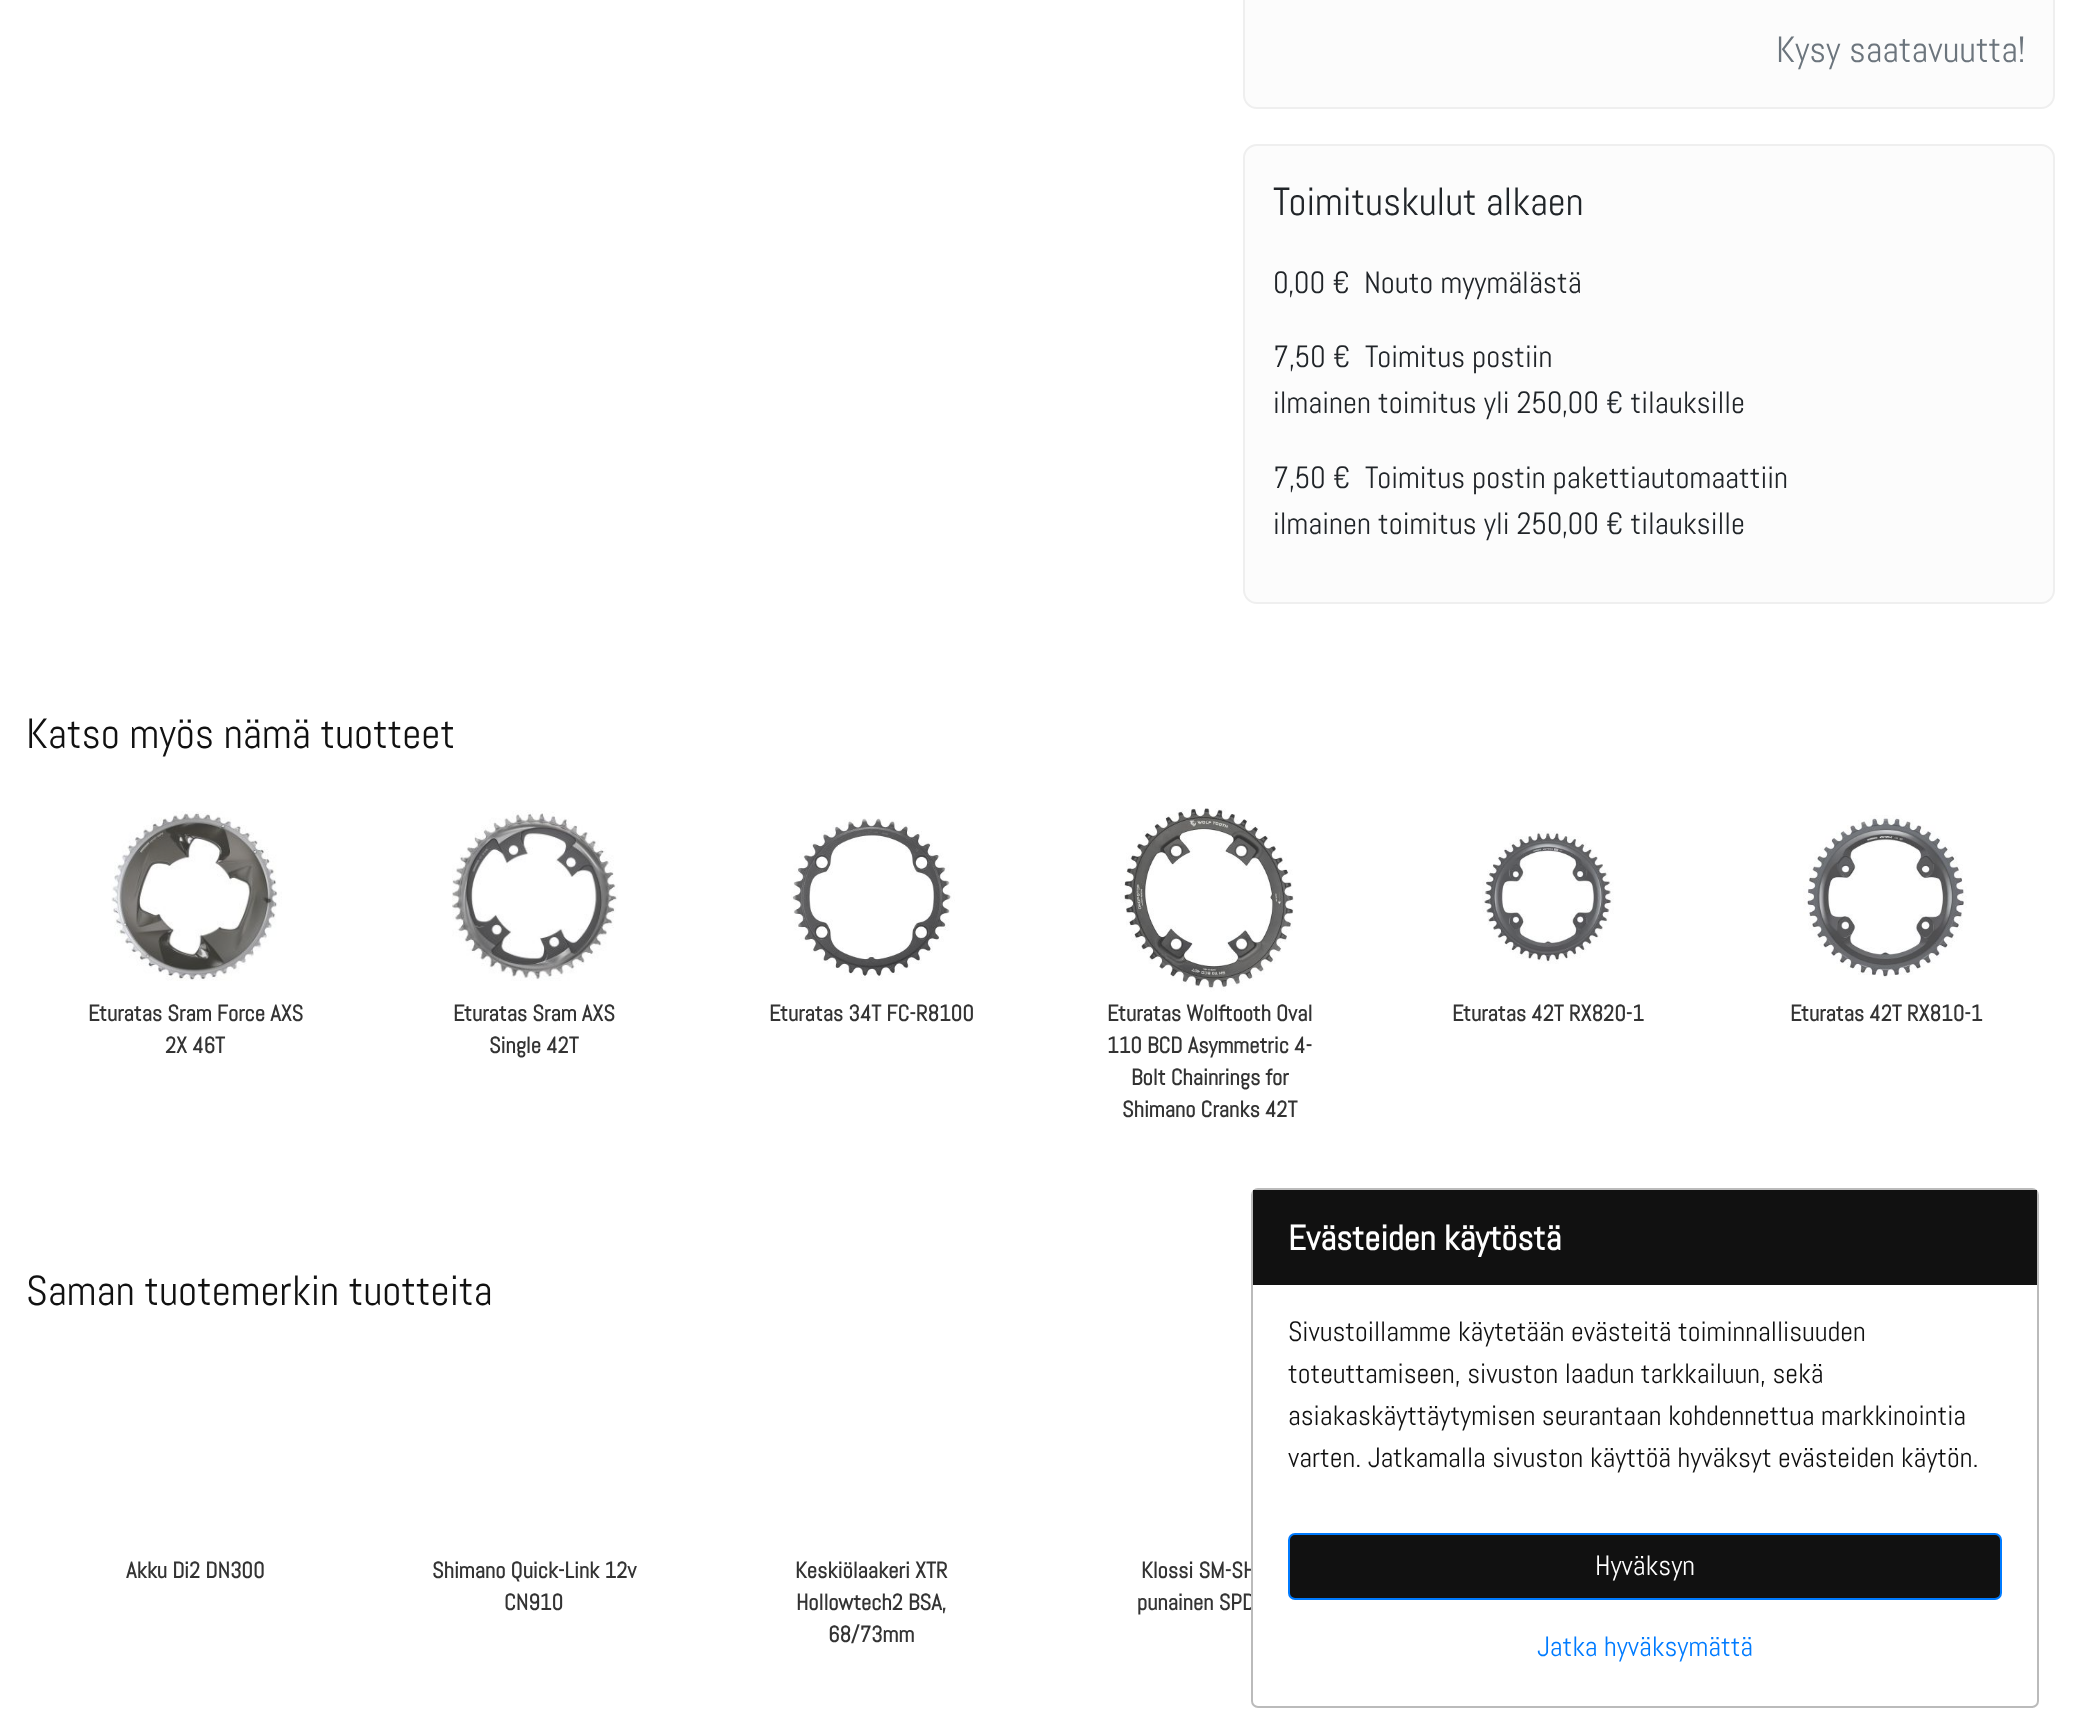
<svg xmlns="http://www.w3.org/2000/svg" width="2080" height="1724">
<rect width="100%" height="100%" fill="#fff"/>
<rect x="1244" y="-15" width="810" height="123" rx="13" fill="#fcfcfc" stroke="#efefef" stroke-width="2"/>
<text x="1776" y="62" style="font-family:Abel;font-size:36.5px;fill:#6c757d">Kysy saatavuutta!</text>
<rect x="1244" y="145" width="810" height="458" rx="13" fill="#fcfcfc" stroke="#efefef" stroke-width="2"/>
<text x="1273" y="215" style="font-family:Abel;font-size:39.25px;fill:#212529">Toimituskulut alkaen</text>
<text x="1273" y="293" style="font-family:Abel;font-size:30.75px;fill:#212529">0,00 €</text>
<text x="1364" y="293" style="font-family:Abel;font-size:30.75px;fill:#212529">Nouto myymälästä</text>
<text x="1273" y="367" style="font-family:Abel;font-size:30.75px;fill:#212529">7,50 €</text>
<text x="1365" y="367" style="font-family:Abel;font-size:30.75px;fill:#212529">Toimitus postiin</text>
<text x="1273" y="413" style="font-family:Abel;font-size:30.75px;fill:#212529">ilmainen toimitus yli 250,00 € tilauksille</text>
<text x="1273" y="488" style="font-family:Abel;font-size:30.75px;fill:#212529">7,50 €</text>
<text x="1365" y="488" style="font-family:Abel;font-size:30.75px;fill:#212529">Toimitus postin pakettiautomaattiin</text>
<text x="1273" y="534" style="font-family:Abel;font-size:30.75px;fill:#212529">ilmainen toimitus yli 250,00 € tilauksille</text>
<text x="26" y="748" style="font-family:Abel;font-size:42px;fill:#111">Katso myös nämä tuotteet</text>
<image x="111" y="811" width="171" height="170" href="media/1.png"/>
<text x="88" y="1021" style="font-family:Abel;font-size:22.5px;font-weight:bold;fill:#333">Eturatas Sram Force AXS</text>
<text x="165" y="1053" style="font-family:Abel;font-size:22.5px;font-weight:bold;fill:#333">2X 46T</text>
<image x="452" y="810" width="166" height="171" href="media/2.png"/>
<text x="453" y="1021" style="font-family:Abel;font-size:22.5px;font-weight:bold;fill:#333">Eturatas Sram AXS</text>
<text x="489" y="1053" style="font-family:Abel;font-size:22.5px;font-weight:bold;fill:#333">Single 42T</text>
<image x="791" y="818" width="164" height="163" href="media/3.png"/>
<text x="769" y="1021" style="font-family:Abel;font-size:22.5px;font-weight:bold;fill:#333">Eturatas 34T FC-R8100</text>
<image x="1120" y="808" width="174" height="184" href="media/4.png"/>
<text x="1107" y="1021" style="font-family:Abel;font-size:22.5px;font-weight:bold;fill:#333">Eturatas Wolftooth Oval</text>
<text x="1107" y="1053" style="font-family:Abel;font-size:22.5px;font-weight:bold;fill:#333">110 BCD Asymmetric 4-</text>
<text x="1131" y="1085" style="font-family:Abel;font-size:22.5px;font-weight:bold;fill:#333">Bolt Chainrings for</text>
<text x="1122" y="1117" style="font-family:Abel;font-size:22.5px;font-weight:bold;fill:#333">Shimano Cranks 42T</text>
<image x="1482" y="831" width="132" height="133" href="media/5.png"/>
<text x="1452" y="1021" style="font-family:Abel;font-size:22.5px;font-weight:bold;fill:#333">Eturatas 42T RX820-1</text>
<image x="1803" y="815" width="164" height="165" href="media/6.png"/>
<text x="1790" y="1021" style="font-family:Abel;font-size:22.5px;font-weight:bold;fill:#333">Eturatas 42T RX810-1</text>
<text x="26" y="1305" style="font-family:Abel;font-size:42px;fill:#111">Saman tuotemerkin tuotteita</text>
<text x="126" y="1578" style="font-family:Abel;font-size:22.5px;font-weight:bold;fill:#333">Akku Di2 DN300</text>
<text x="432" y="1578" style="font-family:Abel;font-size:22.5px;font-weight:bold;fill:#333">Shimano Quick-Link 12v</text>
<text x="504" y="1610" style="font-family:Abel;font-size:22.5px;font-weight:bold;fill:#333">CN910</text>
<text x="795" y="1578" style="font-family:Abel;font-size:22.5px;font-weight:bold;fill:#333">Keskiölaakeri XTR</text>
<text x="796" y="1610" style="font-family:Abel;font-size:22.5px;font-weight:bold;fill:#333">Hollowtech2 BSA,</text>
<text x="828" y="1642" style="font-family:Abel;font-size:22.5px;font-weight:bold;fill:#333">68/73mm</text>
<text x="1141" y="1578" style="font-family:Abel;font-size:22.5px;font-weight:bold;fill:#333">Klossi SM-SH</text>
<text x="1137" y="1610" style="font-family:Abel;font-size:22.5px;font-weight:bold;fill:#333">punainen SPD</text>
<rect x="1252" y="1189" width="786" height="518" rx="6" fill="#fff" stroke="#bbb" stroke-width="2"/>
<rect x="1253" y="1190" width="784" height="95" fill="#111"/>
<text x="1288" y="1250" style="font-family:Abel;font-size:35px;font-weight:bold;fill:#fff">Evästeiden käytöstä</text>
<text x="1288" y="1341" style="font-family:Abel;font-size:28px;fill:#111">Sivustoillamme käytetään evästeitä toiminnallisuuden</text>
<text x="1288" y="1383" style="font-family:Abel;font-size:28px;fill:#111">toteuttamiseen, sivuston laadun tarkkailuun, sekä</text>
<text x="1288" y="1425" style="font-family:Abel;font-size:28px;fill:#111">asiakaskäyttäytymisen seurantaan kohdennettua markkinointia</text>
<text x="1288" y="1467" style="font-family:Abel;font-size:28px;fill:#111">varten. Jatkamalla sivuston käyttöä hyväksyt evästeiden käytön.</text>
<rect x="1289" y="1534" width="712" height="65" rx="6" fill="#111" stroke="#007bff" stroke-width="2"/>
<text x="1595" y="1575" style="font-family:Abel;font-size:28px;fill:#fff">Hyväksyn</text>
<text x="1537" y="1656" style="font-family:Abel;font-size:28px;fill:#007bff">Jatka hyväksymättä</text>
</svg>
